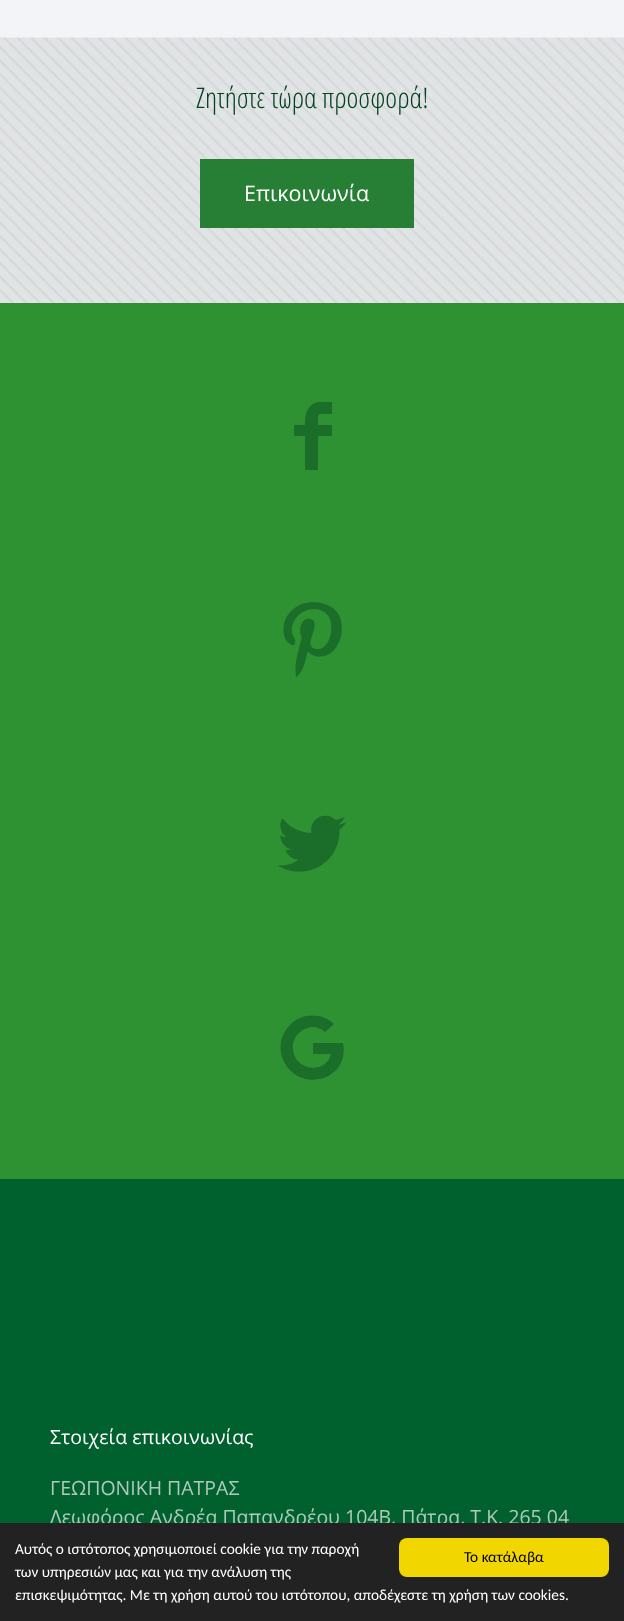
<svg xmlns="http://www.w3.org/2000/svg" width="624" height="1621">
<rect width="100%" height="100%" fill="#f2f4f7"/>
<image x="0" y="37" width="624" height="266" href="media/1.png"/>
<text x="196" y="108" style="font-family:Open Sans Condensed;font-size:28.5px;font-weight:300;fill:#024220">Ζητήστε τώρα προσφορά!</text>
<rect x="200" y="159" width="214" height="69" fill="#267f34"/>
<text x="244" y="201" style="font-family:Open Sans;font-size:21.5px;fill:#fff">Επικοινωνία</text>
<rect y="303" width="624" height="876" fill="#2e9233"/>
<path d="M332 414c-15 0-14-3-14 11h14v11h-14v34h-13v-34h-11v-11h11c0-9 1-20 13-23h14z" fill="#1b6d2a"/>
<image x="283" y="602" width="59" height="75" href="media/2.png"/>
<image x="278" y="815" width="69" height="57" href="media/3.png"/>
<path d="M313 1043h30c2 9 0 18-5 25c-5 6-12 10-19 11c-30 6-51-30-30-53c11-13 33-14 45-2l-9 8c-3-3-8-5-14-5c-6 1-11 4-15 9c-2 4-4 9-3 13c1 22 33 26 38 5h-18z" fill="#1b6d2a"/>
<rect y="1179" width="624" height="344" fill="#00612e"/>
<text x="50" y="1444" style="font-family:Open Sans;font-size:19.5px;fill:#fff">Στοιχεία επικοινωνίας</text>
<text x="50" y="1495" style="font-family:Open Sans;font-size:19.5px;fill:#aecab9">ΓΕΩΠΟΝΙΚΗ ΠΑΤΡΑΣ</text>
<text x="50" y="1524" style="font-family:Open Sans;font-size:19.5px;fill:#aecab9">Λεωφόρος Ανδρέα Παπανδρέου 104Β, Πάτρα, Τ.Κ. 265 04</text>
<rect y="1523" width="624" height="98" fill="#222"/>
<text x="15" y="1554" style="font-family:Carlito;font-size:15.3px;fill:#fff">Αυτός ο ιστότοπος χρησιμοποιεί cookie για την παροχή</text>
<text x="15" y="1577" style="font-family:Carlito;font-size:15.3px;fill:#fff">των υπηρεσιών μας και για την ανάλυση της</text>
<text x="15" y="1600" style="font-family:Carlito;font-size:15.3px;fill:#fff">επισκεψιμότητας. Με τη χρήση αυτού του ιστότοπου, αποδέχεστε τη χρήση των cookies.</text>
<rect x="399" y="1538" width="210" height="39" rx="8" fill="#f1d600"/>
<text x="464" y="1562" style="font-family:Carlito;font-size:15.3px;fill:#000">Το κατάλαβα</text>
</svg>
